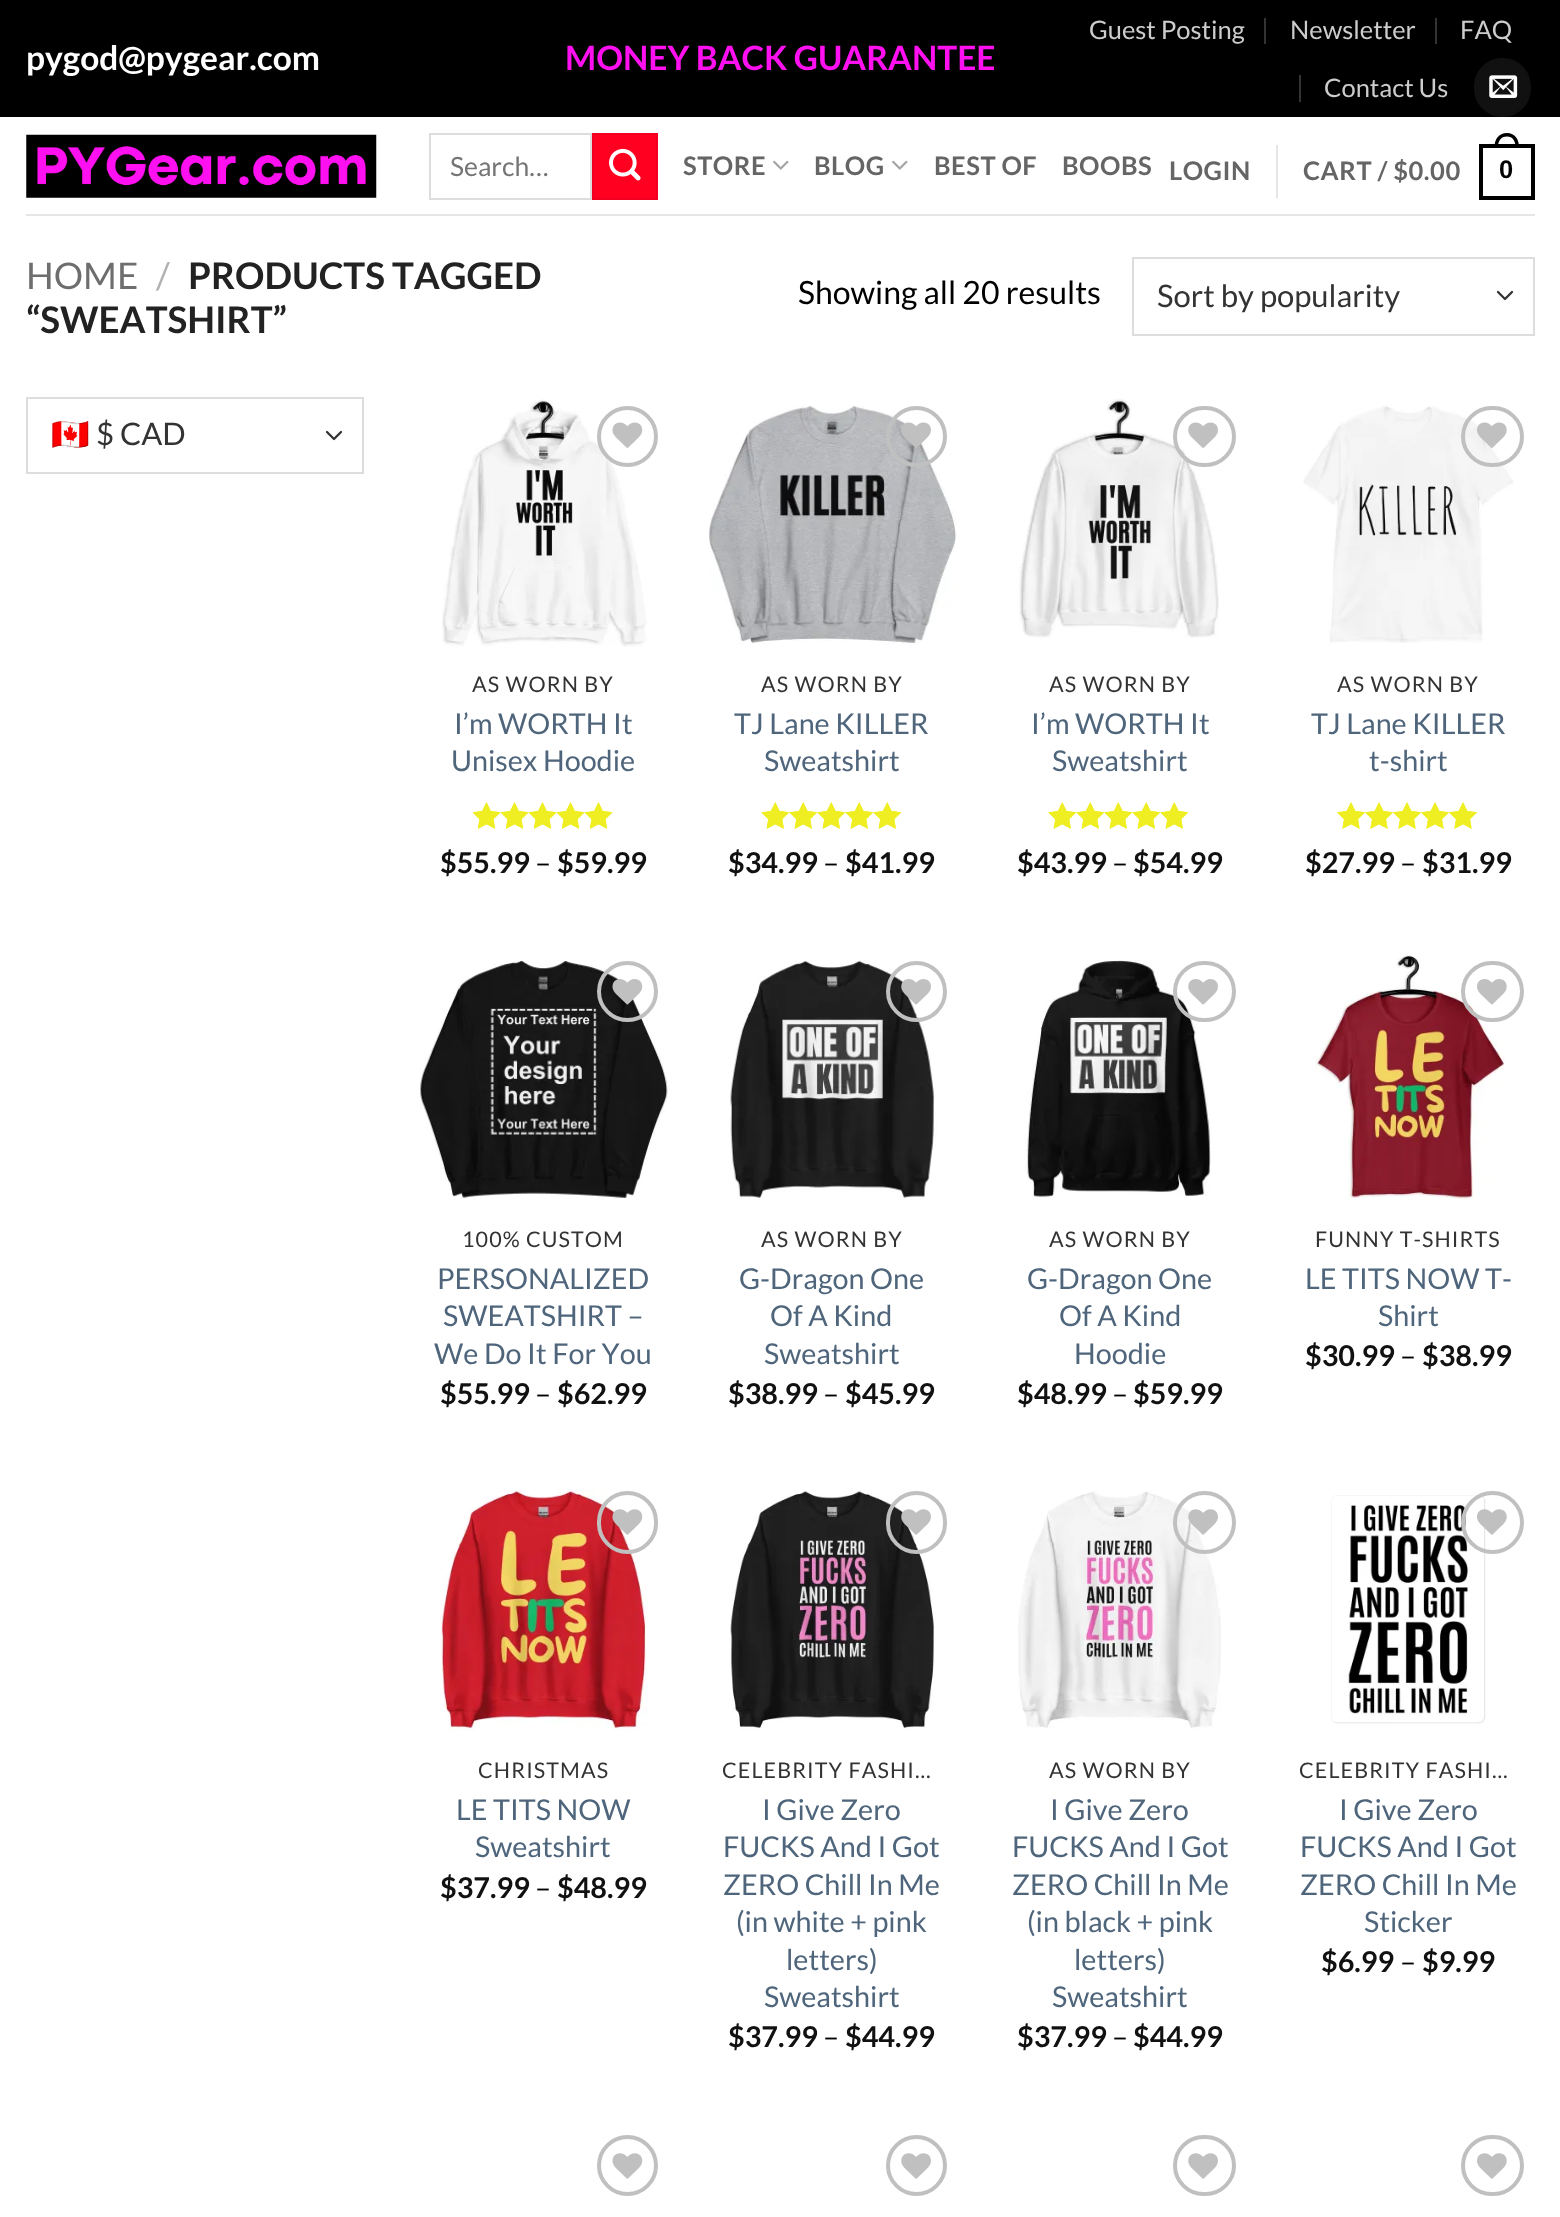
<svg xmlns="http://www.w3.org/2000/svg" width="1560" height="2217">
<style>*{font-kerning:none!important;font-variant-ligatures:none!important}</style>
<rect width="100%" height="100%" fill="#fff"/>
<rect width="1560" height="117" fill="#000"/>
<text x="26" y="70" style="font-family:Lato;font-size:33.5px;font-weight:bold;fill:#fff">pygod@pygear.com</text>
<text x="565" y="70" style="font-family:Lato;font-size:33.5px;font-weight:bold;fill:#ff10f0">MONEY BACK GUARANTEE</text>
<text x="1089" y="39" style="font-family:Lato;font-size:25.5px;fill:#ccc">Guest Posting</text>
<rect x="1264" y="18" width="2" height="26" fill="#333"/>
<text x="1290" y="39" style="font-family:Lato;font-size:25.5px;fill:#ccc">Newsletter</text>
<rect x="1435" y="18" width="2" height="26" fill="#333"/>
<text x="1460" y="39" style="font-family:Lato;font-size:25.5px;fill:#ccc">FAQ</text>
<rect x="1299" y="75" width="2" height="27" fill="#333"/>
<text x="1324" y="97" style="font-family:Lato;font-size:25.5px;fill:#ccc">Contact Us</text>
<rect x="1475" y="59" width="55" height="57" rx="27.5" fill="#111" stroke="#111" stroke-width="2"/>
<image x="1489" y="75" width="29" height="23" href="media/1.png"/>
<image x="26" y="134" width="351" height="64" href="media/2.png"/>
<rect x="430" y="134" width="161" height="65" fill="none" stroke="#ddd" stroke-width="2"/>
<text x="450" y="176" style="font-family:Lato;font-size:26.5px;fill:#757575">Search…</text>
<rect x="593" y="134" width="64" height="65" fill="#ff0021" stroke="#f2001f" stroke-width="2"/>
<image x="609" y="148" width="32" height="33" href="media/3.png"/>
<text x="683" y="175" style="font-family:Lato;font-size:25.5px;font-weight:bold;letter-spacing:0.5px;fill:#656565">STORE</text>
<image x="773" y="160" width="16" height="10" href="media/4.png"/>
<text x="814" y="175" style="font-family:Lato;font-size:25.5px;font-weight:bold;letter-spacing:0.5px;fill:#656565">BLOG</text>
<image x="892" y="160" width="16" height="10" href="media/4.png"/>
<text x="934" y="175" style="font-family:Lato;font-size:25.5px;font-weight:bold;letter-spacing:0.5px;fill:#656565">BEST OF</text>
<text x="1062" y="175" style="font-family:Lato;font-size:25.5px;font-weight:bold;letter-spacing:0.5px;fill:#656565">BOOBS</text>
<text x="1169" y="180" style="font-family:Lato;font-size:25.5px;font-weight:bold;letter-spacing:0.5px;fill:#656565">LOGIN</text>
<rect x="1276" y="145" width="2" height="53" fill="#e6e6e6"/>
<text x="1303" y="180" style="font-family:Lato;font-size:25.5px;font-weight:bold;letter-spacing:0.5px;fill:#656565">CART / $0.00</text>
<rect x="1481" y="146" width="52" height="52" fill="none" stroke="#000" stroke-width="4"/>
<path d="M1507 133c8 0 12 6.5 12 14h-24.5c0-7.5 4-14 12.5-14zm0 3.5c6 0 8.5 5 8.5 10.5h-17.5c0-5.5 2.5-10.5 9-10.5z" fill="#000" fill-rule="evenodd"/>
<text x="1499" y="178" style="font-family:Liberation Sans;font-size:25.5px;font-weight:bold;letter-spacing:0.5px;fill:#000">0</text>
<rect x="26" y="214" width="1509" height="2" fill="#e6e6e6"/>
<text x="26" y="289" style="font-family:Lato;font-size:36.75px;fill:#6e6e6e">HOME</text>
<text x="156" y="289" style="font-family:Lato;font-size:36.75px;fill:#b2b2b2">/</text>
<text x="188" y="289" style="font-family:Lato;font-size:36.75px;font-weight:bold;fill:#222">PRODUCTS TAGGED</text>
<text x="26" y="333" style="font-family:Lato;font-size:36.75px;font-weight:bold;fill:#222">“SWEATSHIRT”</text>
<text x="798" y="304" style="font-family:Lato;font-size:32px;fill:#000">Showing all 20 results</text>
<path d="M1498 292l7 7l7-7" fill="none" stroke="#333" stroke-width="2.3" stroke-linecap="round" stroke-linejoin="round"/>
<rect x="1133" y="258" width="401" height="77" fill="none" stroke="#ddd" stroke-width="2"/>
<text x="1157" y="307" style="font-family:Lato;font-size:31px;fill:#333">Sort by popularity</text>
<path d="M327 432l7 7l7-7" fill="none" stroke="#333" stroke-width="2.3" stroke-linecap="round" stroke-linejoin="round"/>
<rect x="27" y="398" width="336" height="75" fill="none" stroke="#ddd" stroke-width="2"/>
<text x="51" y="445" style="font-family:Noto Color Emoji;font-size:31px;fill:#333">🇨🇦</text>
<text x="96" y="445" style="font-family:Lato;font-size:31px;fill:#333">$ CAD</text>
<image x="442" y="399" width="205" height="248" href="media/5.png"/>
<circle cx="627.5" cy="436.5" r="28.5" fill="none" stroke="#c0c0c0" stroke-width="4"/>
<image x="612" y="422" width="31" height="26" href="media/6.png"/>
<text x="472" y="692" style="font-family:Lato;font-size:21.5px;letter-spacing:1.1px;fill:#333">AS WORN BY</text>
<text x="454" y="734" style="font-family:Lato;font-size:28.75px;fill:#4e657b">I’m WORTH It</text>
<text x="451" y="771" style="font-family:Lato;font-size:28.75px;fill:#4e657b">Unisex Hoodie</text>
<image x="473" y="802" width="140" height="27" href="media/7.png"/>
<image x="473" y="802" width="140" height="27" href="media/8.png"/>
<text x="440" y="873" style="font-family:Lato;font-size:28.75px;font-weight:bold;fill:#111">$55.99</text>
<text x="535" y="873" style="font-family:Lato;font-size:28.75px;fill:#000">–</text>
<text x="557" y="873" style="font-family:Lato;font-size:28.75px;font-weight:bold;fill:#111">$59.99</text>
<image x="709" y="405" width="248" height="240" href="media/9.png"/>
<circle cx="916.5" cy="436.5" r="28.5" fill="none" stroke="#c0c0c0" stroke-width="4"/>
<image x="901" y="422" width="30" height="26" href="media/10.png"/>
<text x="761" y="692" style="font-family:Lato;font-size:21.5px;letter-spacing:1.1px;fill:#333">AS WORN BY</text>
<text x="734" y="734" style="font-family:Lato;font-size:28.75px;fill:#4e657b">TJ Lane KILLER</text>
<text x="764" y="771" style="font-family:Lato;font-size:28.75px;fill:#4e657b">Sweatshirt</text>
<image x="761" y="802" width="141" height="27" href="media/11.png"/>
<image x="761" y="802" width="141" height="27" href="media/12.png"/>
<text x="728" y="873" style="font-family:Lato;font-size:28.75px;font-weight:bold;fill:#111">$34.99</text>
<text x="823" y="873" style="font-family:Lato;font-size:28.75px;fill:#000">–</text>
<text x="845" y="873" style="font-family:Lato;font-size:28.75px;font-weight:bold;fill:#111">$41.99</text>
<image x="1019" y="398" width="200" height="240" href="media/13.png"/>
<rect x="1175" y="408" width="59" height="57" rx="28.5" fill="none" stroke="#c0c0c0" stroke-width="4"/>
<image x="1188" y="422" width="30" height="26" href="media/14.png"/>
<text x="1049" y="692" style="font-family:Lato;font-size:21.5px;letter-spacing:1.1px;fill:#333">AS WORN BY</text>
<text x="1031" y="734" style="font-family:Lato;font-size:28.75px;fill:#4e657b">I’m WORTH It</text>
<text x="1052" y="771" style="font-family:Lato;font-size:28.75px;fill:#4e657b">Sweatshirt</text>
<image x="1048" y="802" width="141" height="27" href="media/11.png"/>
<image x="1048" y="802" width="141" height="27" href="media/12.png"/>
<text x="1017" y="873" style="font-family:Lato;font-size:28.75px;font-weight:bold;fill:#111">$43.99</text>
<text x="1112" y="873" style="font-family:Lato;font-size:28.75px;fill:#000">–</text>
<text x="1133" y="873" style="font-family:Lato;font-size:28.75px;font-weight:bold;fill:#111">$54.99</text>
<image x="1303" y="404" width="211" height="239" href="media/15.png"/>
<rect x="1463" y="408" width="59" height="57" rx="28.5" fill="none" stroke="#c0c0c0" stroke-width="4"/>
<image x="1477" y="422" width="30" height="26" href="media/16.png"/>
<text x="1337" y="692" style="font-family:Lato;font-size:21.5px;letter-spacing:1.1px;fill:#333">AS WORN BY</text>
<text x="1311" y="734" style="font-family:Lato;font-size:28.75px;fill:#4e657b">TJ Lane KILLER</text>
<text x="1369" y="771" style="font-family:Lato;font-size:28.75px;fill:#4e657b">t-shirt</text>
<image x="1337" y="802" width="140" height="27" href="media/17.png"/>
<image x="1337" y="802" width="140" height="27" href="media/18.png"/>
<text x="1305" y="873" style="font-family:Lato;font-size:28.75px;font-weight:bold;fill:#111">$27.99</text>
<text x="1400" y="873" style="font-family:Lato;font-size:28.75px;fill:#000">–</text>
<text x="1422" y="873" style="font-family:Lato;font-size:28.75px;font-weight:bold;fill:#111">$31.99</text>
<image x="420" y="960" width="248" height="240" href="media/19.png"/>
<circle cx="627.5" cy="991.5" r="28.5" fill="none" stroke="#c0c0c0" stroke-width="4"/>
<image x="612" y="979" width="31" height="26" href="media/20.png"/>
<text x="462" y="1247" style="font-family:Lato;font-size:21.5px;letter-spacing:1.1px;fill:#333">100% CUSTOM</text>
<text x="437" y="1289" style="font-family:Lato;font-size:28.75px;fill:#4e657b">PERSONALIZED</text>
<text x="443" y="1326" style="font-family:Lato;font-size:28.75px;fill:#4e657b">SWEATSHIRT –</text>
<text x="434" y="1364" style="font-family:Lato;font-size:28.75px;fill:#4e657b">We Do It For You</text>
<text x="440" y="1404" style="font-family:Lato;font-size:28.75px;font-weight:bold;fill:#111">$55.99</text>
<text x="535" y="1404" style="font-family:Lato;font-size:28.75px;fill:#000">–</text>
<text x="557" y="1404" style="font-family:Lato;font-size:28.75px;font-weight:bold;fill:#111">$62.99</text>
<image x="730" y="960" width="207" height="240" href="media/21.png"/>
<circle cx="916.5" cy="991.5" r="28.5" fill="none" stroke="#c0c0c0" stroke-width="4"/>
<image x="901" y="979" width="30" height="26" href="media/22.png"/>
<text x="761" y="1247" style="font-family:Lato;font-size:21.5px;letter-spacing:1.1px;fill:#333">AS WORN BY</text>
<text x="739" y="1289" style="font-family:Lato;font-size:28.75px;fill:#4e657b">G-Dragon One</text>
<text x="770" y="1326" style="font-family:Lato;font-size:28.75px;fill:#4e657b">Of A Kind</text>
<text x="764" y="1364" style="font-family:Lato;font-size:28.75px;fill:#4e657b">Sweatshirt</text>
<text x="728" y="1404" style="font-family:Lato;font-size:28.75px;font-weight:bold;fill:#111">$38.99</text>
<text x="823" y="1404" style="font-family:Lato;font-size:28.75px;fill:#000">–</text>
<text x="845" y="1404" style="font-family:Lato;font-size:28.75px;font-weight:bold;fill:#111">$45.99</text>
<image x="1025" y="960" width="186" height="238" href="media/23.png"/>
<rect x="1175" y="963" width="59" height="57" rx="28.5" fill="none" stroke="#c0c0c0" stroke-width="4"/>
<image x="1188" y="979" width="30" height="26" href="media/24.png"/>
<text x="1049" y="1247" style="font-family:Lato;font-size:21.5px;letter-spacing:1.1px;fill:#333">AS WORN BY</text>
<text x="1027" y="1289" style="font-family:Lato;font-size:28.75px;fill:#4e657b">G-Dragon One</text>
<text x="1059" y="1326" style="font-family:Lato;font-size:28.75px;fill:#4e657b">Of A Kind</text>
<text x="1074" y="1364" style="font-family:Lato;font-size:28.75px;fill:#4e657b">Hoodie</text>
<text x="1017" y="1404" style="font-family:Lato;font-size:28.75px;font-weight:bold;fill:#111">$48.99</text>
<text x="1112" y="1404" style="font-family:Lato;font-size:28.75px;fill:#000">–</text>
<text x="1133" y="1404" style="font-family:Lato;font-size:28.75px;font-weight:bold;fill:#111">$59.99</text>
<image x="1315" y="955" width="190" height="245" href="media/25.png"/>
<rect x="1463" y="963" width="59" height="57" rx="28.5" fill="none" stroke="#c0c0c0" stroke-width="4"/>
<image x="1477" y="979" width="30" height="26" href="media/26.png"/>
<text x="1315" y="1247" style="font-family:Lato;font-size:21.5px;letter-spacing:1.1px;fill:#333">FUNNY T-SHIRTS</text>
<text x="1305" y="1289" style="font-family:Lato;font-size:28.75px;fill:#4e657b">LE TITS NOW T-</text>
<text x="1378" y="1326" style="font-family:Lato;font-size:28.75px;fill:#4e657b">Shirt</text>
<text x="1305" y="1366" style="font-family:Lato;font-size:28.75px;font-weight:bold;fill:#111">$30.99</text>
<text x="1400" y="1366" style="font-family:Lato;font-size:28.75px;fill:#000">–</text>
<text x="1422" y="1366" style="font-family:Lato;font-size:28.75px;font-weight:bold;fill:#111">$38.99</text>
<image x="439" y="1489" width="208" height="243" href="media/27.png"/>
<rect x="599" y="1493" width="57" height="59" rx="28.5" fill="none" stroke="#c0c0c0" stroke-width="4"/>
<image x="612" y="1509" width="31" height="26" href="media/28.png"/>
<text x="478" y="1778" style="font-family:Lato;font-size:21.5px;letter-spacing:1.1px;fill:#333">CHRISTMAS</text>
<text x="456" y="1820" style="font-family:Lato;font-size:28.75px;fill:#4e657b">LE TITS NOW</text>
<text x="475" y="1857" style="font-family:Lato;font-size:28.75px;fill:#4e657b">Sweatshirt</text>
<text x="440" y="1898" style="font-family:Lato;font-size:28.75px;font-weight:bold;fill:#111">$37.99</text>
<text x="535" y="1898" style="font-family:Lato;font-size:28.75px;fill:#000">–</text>
<text x="557" y="1898" style="font-family:Lato;font-size:28.75px;font-weight:bold;fill:#111">$48.99</text>
<image x="729" y="1491" width="206" height="238" href="media/29.png"/>
<rect x="888" y="1493" width="57" height="59" rx="28.5" fill="none" stroke="#c0c0c0" stroke-width="4"/>
<image x="901" y="1509" width="30" height="26" href="media/30.png"/>
<text x="722" y="1778" style="font-family:Lato;font-size:21.5px;letter-spacing:1.1px;fill:#333">CELEBRITY FASHI…</text>
<text x="762" y="1820" style="font-family:Lato;font-size:28.75px;fill:#4e657b">I Give Zero</text>
<text x="723" y="1857" style="font-family:Lato;font-size:28.75px;fill:#4e657b">FUCKS And I Got</text>
<text x="723" y="1895" style="font-family:Lato;font-size:28.75px;fill:#4e657b">ZERO Chill In Me</text>
<text x="736" y="1932" style="font-family:Lato;font-size:28.75px;fill:#4e657b">(in white + pink</text>
<text x="786" y="1970" style="font-family:Lato;font-size:28.75px;fill:#4e657b">letters)</text>
<text x="764" y="2007" style="font-family:Lato;font-size:28.75px;fill:#4e657b">Sweatshirt</text>
<text x="728" y="2047" style="font-family:Lato;font-size:28.75px;font-weight:bold;fill:#111">$37.99</text>
<text x="823" y="2047" style="font-family:Lato;font-size:28.75px;fill:#000">–</text>
<text x="845" y="2047" style="font-family:Lato;font-size:28.75px;font-weight:bold;fill:#111">$44.99</text>
<image x="1018" y="1490" width="203" height="239" href="media/31.png"/>
<circle cx="1204.5" cy="1522.5" r="29.5" fill="none" stroke="#c0c0c0" stroke-width="4"/>
<image x="1188" y="1509" width="30" height="26" href="media/32.png"/>
<text x="1049" y="1778" style="font-family:Lato;font-size:21.5px;letter-spacing:1.1px;fill:#333">AS WORN BY</text>
<text x="1050" y="1820" style="font-family:Lato;font-size:28.75px;fill:#4e657b">I Give Zero</text>
<text x="1012" y="1857" style="font-family:Lato;font-size:28.75px;fill:#4e657b">FUCKS And I Got</text>
<text x="1012" y="1895" style="font-family:Lato;font-size:28.75px;fill:#4e657b">ZERO Chill In Me</text>
<text x="1027" y="1932" style="font-family:Lato;font-size:28.75px;fill:#4e657b">(in black + pink</text>
<text x="1074" y="1970" style="font-family:Lato;font-size:28.75px;fill:#4e657b">letters)</text>
<text x="1052" y="2007" style="font-family:Lato;font-size:28.75px;fill:#4e657b">Sweatshirt</text>
<text x="1017" y="2047" style="font-family:Lato;font-size:28.75px;font-weight:bold;fill:#111">$37.99</text>
<text x="1112" y="2047" style="font-family:Lato;font-size:28.75px;fill:#000">–</text>
<text x="1133" y="2047" style="font-family:Lato;font-size:28.75px;font-weight:bold;fill:#111">$44.99</text>
<image x="1331" y="1495" width="155" height="230" href="media/33.png"/>
<circle cx="1492.5" cy="1522.5" r="29.5" fill="none" stroke="#c0c0c0" stroke-width="4"/>
<image x="1477" y="1509" width="30" height="26" href="media/34.png"/>
<text x="1299" y="1778" style="font-family:Lato;font-size:21.5px;letter-spacing:1.1px;fill:#333">CELEBRITY FASHI…</text>
<text x="1339" y="1820" style="font-family:Lato;font-size:28.75px;fill:#4e657b">I Give Zero</text>
<text x="1300" y="1857" style="font-family:Lato;font-size:28.75px;fill:#4e657b">FUCKS And I Got</text>
<text x="1300" y="1895" style="font-family:Lato;font-size:28.75px;fill:#4e657b">ZERO Chill In Me</text>
<text x="1364" y="1932" style="font-family:Lato;font-size:28.75px;fill:#4e657b">Sticker</text>
<text x="1321" y="1972" style="font-family:Lato;font-size:28.75px;font-weight:bold;fill:#111">$6.99</text>
<text x="1400" y="1972" style="font-family:Lato;font-size:28.75px;fill:#000">–</text>
<text x="1422" y="1972" style="font-family:Lato;font-size:28.75px;font-weight:bold;fill:#111">$9.99</text>
<circle cx="627.5" cy="2165.5" r="28.5" fill="none" stroke="#c0c0c0" stroke-width="4"/>
<image x="612" y="2153" width="31" height="26" href="media/35.png"/>
<circle cx="916.5" cy="2165.5" r="28.5" fill="none" stroke="#c0c0c0" stroke-width="4"/>
<image x="901" y="2153" width="30" height="26" href="media/36.png"/>
<rect x="1175" y="2137" width="59" height="57" rx="28.5" fill="none" stroke="#c0c0c0" stroke-width="4"/>
<image x="1188" y="2153" width="30" height="26" href="media/36.png"/>
<rect x="1463" y="2137" width="59" height="57" rx="28.5" fill="none" stroke="#c0c0c0" stroke-width="4"/>
<image x="1477" y="2153" width="30" height="26" href="media/37.png"/>
</svg>
